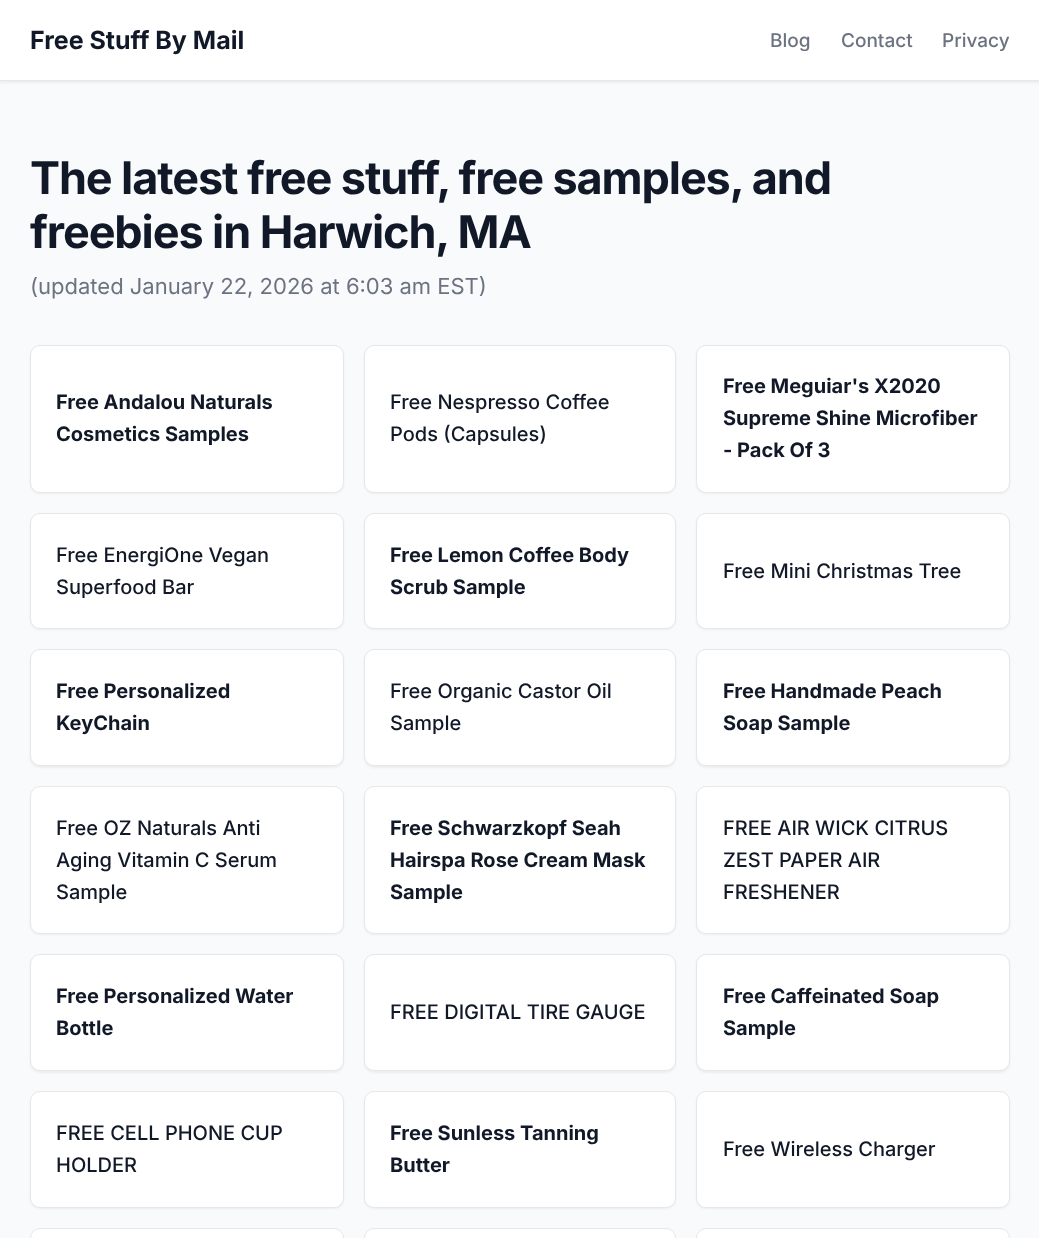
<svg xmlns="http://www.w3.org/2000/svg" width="1039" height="1238">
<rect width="100%" height="100%" fill="#f9fafb"/>
<rect y="1" width="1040" height="82" fill="#0000000d" filter="blur(1px)"/>
<rect width="1039" height="80" fill="#fff"/>
<rect y="80" width="1039" height="1" fill="#e5e7eb"/>
<text x="30" y="49" style="font-family:Inter;font-size:25px;font-weight:bold;fill:#111827">Free Stuff By Mail</text>
<text x="770" y="47" style="font-family:Inter;font-size:19px;font-weight:500;fill:#6b7280">Blog</text>
<text x="841" y="47" style="font-family:Inter;font-size:19px;font-weight:500;fill:#6b7280">Contact</text>
<text x="942" y="47" style="font-family:Inter;font-size:19px;font-weight:500;fill:#6b7280">Privacy</text>
<text x="30" y="194" style="font-family:Inter;font-size:45px;font-weight:bold;letter-spacing:-1.1px;fill:#111827">The latest free stuff, free samples, and</text>
<text x="30" y="248" style="font-family:Inter;font-size:45px;font-weight:bold;letter-spacing:-1.1px;fill:#111827">freebies in Harwich, MA</text>
<text x="30" y="294" style="font-family:Inter;font-size:22px;fill:#6b7280">(updated January 22, 2026 at 6:03 am EST)</text>
<rect x="30" y="346" width="314" height="148" rx="10" fill="#0000000d" filter="blur(1px)"/>
<rect x="30.5" y="345.5" width="313" height="147" rx="9.5" fill="#fff" stroke="#e5e7eb"/>
<text x="56" y="409" style="font-family:Inter;font-size:20px;font-weight:bold;fill:#111827">Free Andalou Naturals</text>
<text x="56" y="441" style="font-family:Inter;font-size:20px;font-weight:bold;fill:#111827">Cosmetics Samples</text>
<rect x="364" y="346" width="312" height="148" rx="10" fill="#0000000d" filter="blur(1px)"/>
<rect x="364.5" y="345.5" width="311" height="147" rx="9.5" fill="#fff" stroke="#e5e7eb"/>
<text x="390" y="409" style="font-family:Inter;font-size:20px;font-weight:500;fill:#111827">Free Nespresso Coffee</text>
<text x="390" y="441" style="font-family:Inter;font-size:20px;font-weight:500;fill:#111827">Pods (Capsules)</text>
<rect x="696" y="346" width="314" height="148" rx="10" fill="#0000000d" filter="blur(1px)"/>
<rect x="696.5" y="345.5" width="313" height="147" rx="9.5" fill="#fff" stroke="#e5e7eb"/>
<text x="723" y="393" style="font-family:Inter;font-size:20px;font-weight:bold;fill:#111827">Free Meguiar's X2020</text>
<text x="723" y="425" style="font-family:Inter;font-size:20px;font-weight:bold;fill:#111827">Supreme Shine Microfiber</text>
<text x="723" y="457" style="font-family:Inter;font-size:20px;font-weight:bold;fill:#111827">- Pack Of 3</text>
<rect x="30" y="514" width="314" height="116" rx="10" fill="#0000000d" filter="blur(1px)"/>
<rect x="30.5" y="513.5" width="313" height="115" rx="9.5" fill="#fff" stroke="#e5e7eb"/>
<text x="56" y="562" style="font-family:Inter;font-size:20px;font-weight:500;fill:#111827">Free EnergiOne Vegan</text>
<text x="56" y="594" style="font-family:Inter;font-size:20px;font-weight:500;fill:#111827">Superfood Bar</text>
<rect x="364" y="514" width="312" height="116" rx="10" fill="#0000000d" filter="blur(1px)"/>
<rect x="364.5" y="513.5" width="311" height="115" rx="9.5" fill="#fff" stroke="#e5e7eb"/>
<text x="390" y="562" style="font-family:Inter;font-size:20px;font-weight:bold;fill:#111827">Free Lemon Coffee Body</text>
<text x="390" y="594" style="font-family:Inter;font-size:20px;font-weight:bold;fill:#111827">Scrub Sample</text>
<rect x="696" y="514" width="314" height="116" rx="10" fill="#0000000d" filter="blur(1px)"/>
<rect x="696.5" y="513.5" width="313" height="115" rx="9.5" fill="#fff" stroke="#e5e7eb"/>
<text x="723" y="578" style="font-family:Inter;font-size:20px;font-weight:500;fill:#111827">Free Mini Christmas Tree</text>
<rect x="30" y="650" width="314" height="118" rx="10" fill="#0000000d" filter="blur(1px)"/>
<rect x="30.5" y="649.5" width="313" height="116" rx="9.5" fill="#fff" stroke="#e5e7eb"/>
<text x="56" y="698" style="font-family:Inter;font-size:20px;font-weight:bold;fill:#111827">Free Personalized</text>
<text x="56" y="730" style="font-family:Inter;font-size:20px;font-weight:bold;fill:#111827">KeyChain</text>
<rect x="364" y="650" width="312" height="118" rx="10" fill="#0000000d" filter="blur(1px)"/>
<rect x="364.5" y="649.5" width="311" height="116" rx="9.5" fill="#fff" stroke="#e5e7eb"/>
<text x="390" y="698" style="font-family:Inter;font-size:20px;font-weight:500;fill:#111827">Free Organic Castor Oil</text>
<text x="390" y="730" style="font-family:Inter;font-size:20px;font-weight:500;fill:#111827">Sample</text>
<rect x="696" y="650" width="314" height="118" rx="10" fill="#0000000d" filter="blur(1px)"/>
<rect x="696.5" y="649.5" width="313" height="116" rx="9.5" fill="#fff" stroke="#e5e7eb"/>
<text x="723" y="698" style="font-family:Inter;font-size:20px;font-weight:bold;fill:#111827">Free Handmade Peach</text>
<text x="723" y="730" style="font-family:Inter;font-size:20px;font-weight:bold;fill:#111827">Soap Sample</text>
<rect x="30" y="788" width="314" height="147" rx="10" fill="#0000000d" filter="blur(1px)"/>
<rect x="30.5" y="786.5" width="313" height="147" rx="9.5" fill="#fff" stroke="#e5e7eb"/>
<text x="56" y="835" style="font-family:Inter;font-size:20px;font-weight:500;fill:#111827">Free OZ Naturals Anti</text>
<text x="56" y="867" style="font-family:Inter;font-size:20px;font-weight:500;fill:#111827">Aging Vitamin C Serum</text>
<text x="56" y="899" style="font-family:Inter;font-size:20px;font-weight:500;fill:#111827">Sample</text>
<rect x="364" y="788" width="312" height="147" rx="10" fill="#0000000d" filter="blur(1px)"/>
<rect x="364.5" y="786.5" width="311" height="147" rx="9.5" fill="#fff" stroke="#e5e7eb"/>
<text x="390" y="835" style="font-family:Inter;font-size:20px;font-weight:bold;fill:#111827">Free Schwarzkopf Seah</text>
<text x="390" y="867" style="font-family:Inter;font-size:20px;font-weight:bold;fill:#111827">Hairspa Rose Cream Mask</text>
<text x="390" y="899" style="font-family:Inter;font-size:20px;font-weight:bold;fill:#111827">Sample</text>
<rect x="696" y="788" width="314" height="147" rx="10" fill="#0000000d" filter="blur(1px)"/>
<rect x="696.5" y="786.5" width="313" height="147" rx="9.5" fill="#fff" stroke="#e5e7eb"/>
<text x="723" y="835" style="font-family:Inter;font-size:20px;font-weight:500;fill:#111827">FREE AIR WICK CITRUS</text>
<text x="723" y="867" style="font-family:Inter;font-size:20px;font-weight:500;fill:#111827">ZEST PAPER AIR</text>
<text x="723" y="899" style="font-family:Inter;font-size:20px;font-weight:500;fill:#111827">FRESHENER</text>
<rect x="30" y="955" width="314" height="118" rx="10" fill="#0000000d" filter="blur(1px)"/>
<rect x="30.5" y="954.5" width="313" height="116" rx="9.5" fill="#fff" stroke="#e5e7eb"/>
<text x="56" y="1003" style="font-family:Inter;font-size:20px;font-weight:bold;fill:#111827">Free Personalized Water</text>
<text x="56" y="1035" style="font-family:Inter;font-size:20px;font-weight:bold;fill:#111827">Bottle</text>
<rect x="364" y="955" width="312" height="118" rx="10" fill="#0000000d" filter="blur(1px)"/>
<rect x="364.5" y="954.5" width="311" height="116" rx="9.5" fill="#fff" stroke="#e5e7eb"/>
<text x="390" y="1019" style="font-family:Inter;font-size:20px;font-weight:500;fill:#111827">FREE DIGITAL TIRE GAUGE</text>
<rect x="696" y="955" width="314" height="118" rx="10" fill="#0000000d" filter="blur(1px)"/>
<rect x="696.5" y="954.5" width="313" height="116" rx="9.5" fill="#fff" stroke="#e5e7eb"/>
<text x="723" y="1003" style="font-family:Inter;font-size:20px;font-weight:bold;fill:#111827">Free Caffeinated Soap</text>
<text x="723" y="1035" style="font-family:Inter;font-size:20px;font-weight:bold;fill:#111827">Sample</text>
<rect x="30" y="1093" width="314" height="116" rx="10" fill="#0000000d" filter="blur(1px)"/>
<rect x="30.5" y="1091.5" width="313" height="116" rx="9.5" fill="#fff" stroke="#e5e7eb"/>
<text x="56" y="1140" style="font-family:Inter;font-size:20px;font-weight:500;fill:#111827">FREE CELL PHONE CUP</text>
<text x="56" y="1172" style="font-family:Inter;font-size:20px;font-weight:500;fill:#111827">HOLDER</text>
<rect x="364" y="1093" width="312" height="116" rx="10" fill="#0000000d" filter="blur(1px)"/>
<rect x="364.5" y="1091.5" width="311" height="116" rx="9.5" fill="#fff" stroke="#e5e7eb"/>
<text x="390" y="1140" style="font-family:Inter;font-size:20px;font-weight:bold;fill:#111827">Free Sunless Tanning</text>
<text x="390" y="1172" style="font-family:Inter;font-size:20px;font-weight:bold;fill:#111827">Butter</text>
<rect x="696" y="1093" width="314" height="116" rx="10" fill="#0000000d" filter="blur(1px)"/>
<rect x="696.5" y="1091.5" width="313" height="116" rx="9.5" fill="#fff" stroke="#e5e7eb"/>
<text x="723" y="1156" style="font-family:Inter;font-size:20px;font-weight:500;fill:#111827">Free Wireless Charger</text>
<rect x="30.5" y="1228.5" width="313" height="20" rx="9.5" fill="#fff" stroke="#e5e7eb"/>
<rect x="364.5" y="1228.5" width="311" height="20" rx="9.5" fill="#fff" stroke="#e5e7eb"/>
<rect x="696.5" y="1228.5" width="313" height="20" rx="9.5" fill="#fff" stroke="#e5e7eb"/>
</svg>
